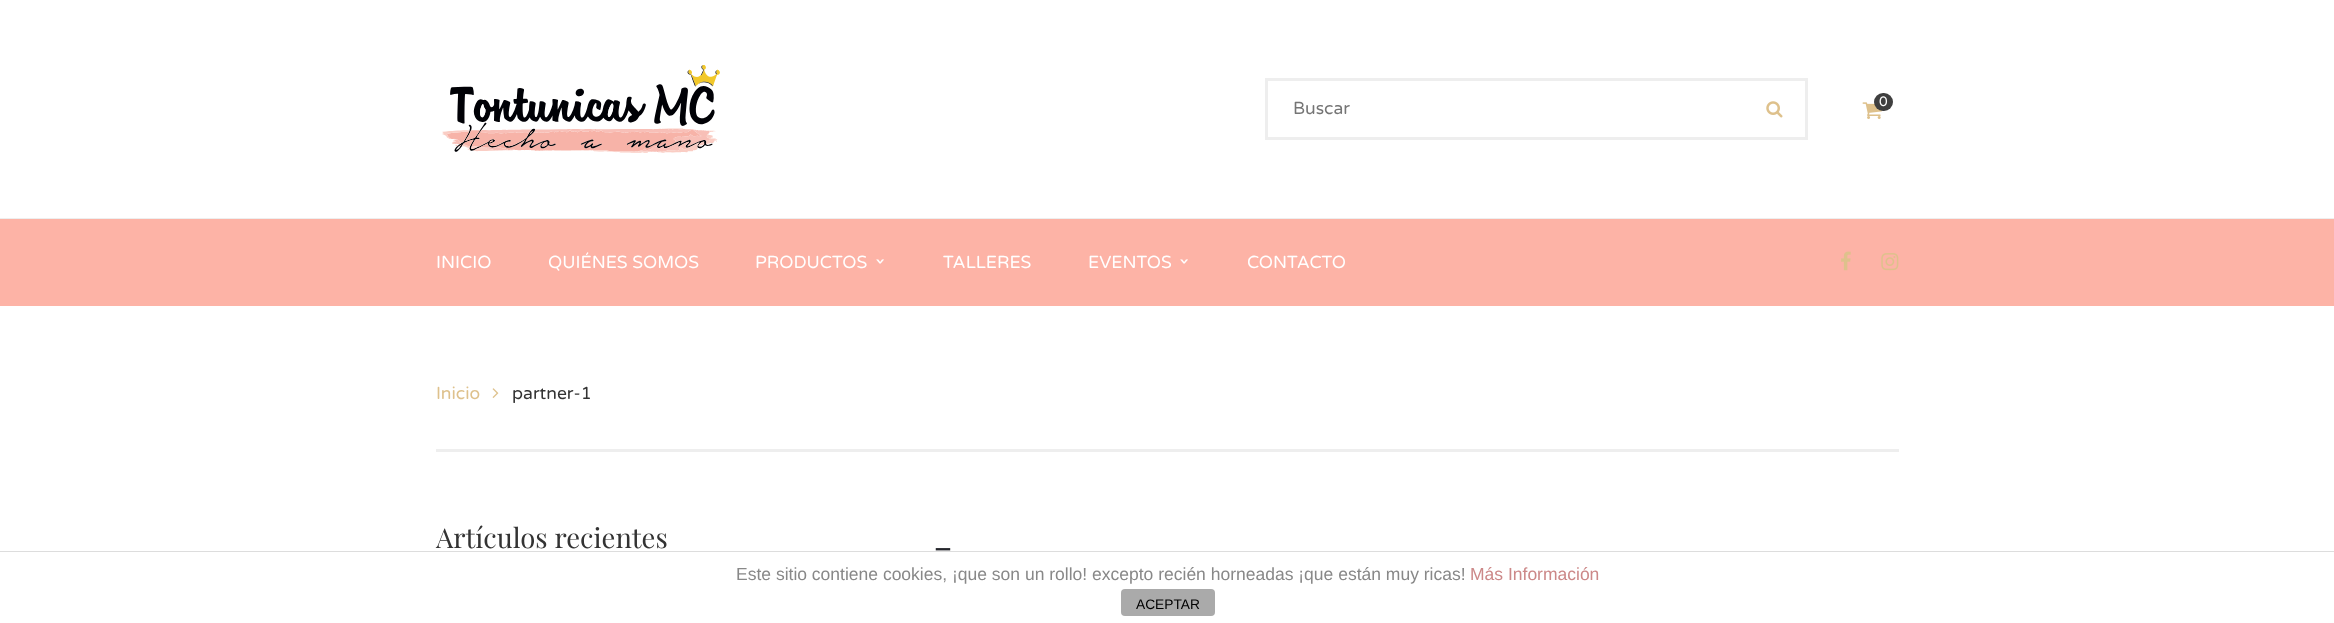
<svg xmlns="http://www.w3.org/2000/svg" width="2334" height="623">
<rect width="100%" height="100%" fill="#fff"/>
<rect y="218" width="2334" height="1" fill="#eee"/>
<image x="442" y="65" width="278" height="88" href="media/1.png"/>
<rect x="1266.5" y="79.5" width="540" height="59" fill="none" stroke="#eee" stroke-width="3"/>
<text x="1293" y="114" style="font-family:Varela Round;font-size:17.5px;fill:#757575">Buscar</text>
<image x="1766" y="101" width="17" height="17" href="media/2.png"/>
<image x="1862" y="102" width="21" height="17" href="media/3.png"/>
<rect x="1874" y="93" width="19" height="18" rx="9" fill="#3f3f3f"/>
<text x="1879" y="106" style="font-family:Varela Round;font-size:13.75px;fill:#fff">0</text>
<rect y="219" width="2334" height="87" fill="#fdb3a6"/>
<text x="436" y="268" style="font-family:Varela Round;font-size:17.5px;fill:#fff">INICIO</text>
<text x="548" y="268" style="font-family:Varela Round;font-size:17.5px;fill:#fff">QUIÉNES SOMOS</text>
<text x="755" y="268" style="font-family:Varela Round;font-size:17.5px;fill:#fff">PRODUCTOS</text>
<text x="875" y="256" transform="rotate(90 875 256)" style="font-family:DejaVu Sans Mono;font-size:17.5px;font-weight:bold;fill:#fff">›</text>
<text x="943" y="268" style="font-family:Varela Round;font-size:17.5px;fill:#fff">TALLERES</text>
<text x="1088" y="268" style="font-family:Varela Round;font-size:17.5px;fill:#fff">EVENTOS</text>
<text x="1179" y="256" transform="rotate(90 1179 256)" style="font-family:DejaVu Sans Mono;font-size:17.5px;font-weight:bold;fill:#fff">›</text>
<text x="1247" y="268" style="font-family:Varela Round;font-size:17.5px;fill:#fff">CONTACTO</text>
<image x="1841" y="251" width="10" height="20" href="media/4.png"/>
<image x="1881" y="253" width="18" height="18" href="media/5.png"/>
<rect x="436" y="449" width="1463" height="3" fill="#eee"/>
<text x="436" y="399" style="font-family:Varela Round;font-size:17.5px;fill:#dec18c">Inicio</text>
<image x="492" y="388" width="7" height="10" href="media/6.png"/>
<text x="512" y="399" style="font-family:Varela Round;font-size:17.5px;fill:#333">partner-1</text>
<text x="436" y="548" style="font-family:Playfair Display;font-size:27.5px;fill:#333">Artículos recientes</text>
<text x="933" y="560" style="font-family:Playfair Display;font-size:40px;letter-spacing:-2px;fill:#25262c">-</text>
<rect y="551" width="2334" height="1" fill="#ddd"/>
<text x="736" y="580" style="font-family:Liberation Sans;font-size:17.5px;fill:#888">Este sitio contiene cookies, ¡que son un rollo! excepto recién horneadas ¡que están muy ricas!</text>
<text x="1470" y="580" style="font-family:Liberation Sans;font-size:17.5px;fill:#c88">Más Información</text>
<rect x="1121" y="589" width="94" height="27" rx="4" fill="#aaa"/>
<text x="1136" y="609" style="font-family:Liberation Sans;font-size:13.75px;fill:#000">ACEPTAR</text>
</svg>
